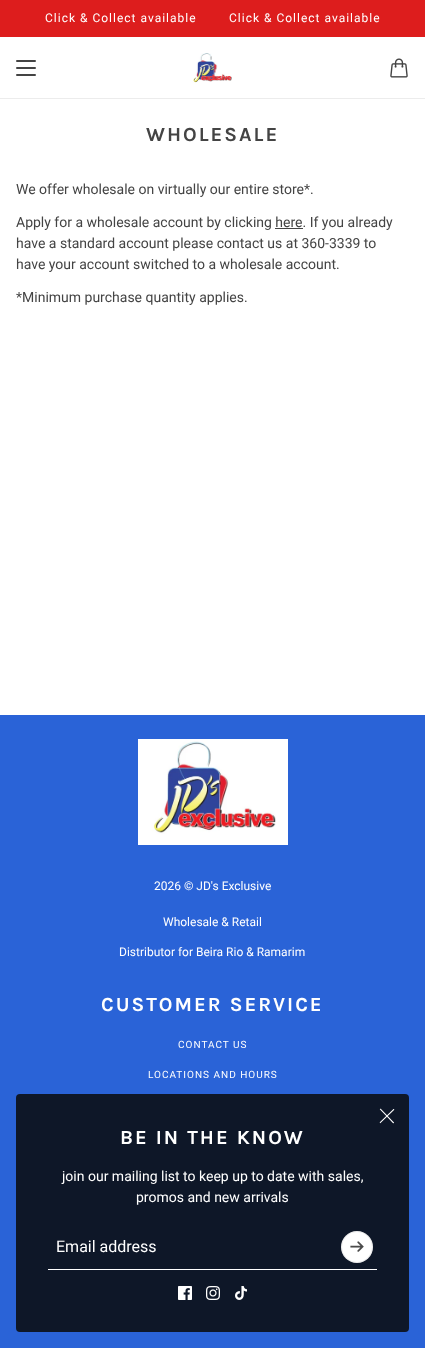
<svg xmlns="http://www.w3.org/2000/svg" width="425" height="1348">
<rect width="100%" height="100%" fill="#fff"/>
<rect width="425" height="37" fill="#dd1d1d"/>
<text x="45" y="22" style="font-family:Roboto;font-size:12px;letter-spacing:1px;fill:#fff">Click &amp; Collect available</text>
<text x="229" y="22" style="font-family:Roboto;font-size:12px;letter-spacing:1px;fill:#fff">Click &amp; Collect available</text>
<rect x="16" y="60" width="20" height="2" rx="1" fill="#444"/>
<rect x="16" y="67" width="20" height="2" rx="1" fill="#444"/>
<rect x="16" y="74" width="20" height="2" rx="1" fill="#444"/>
<image x="193" y="53" width="39" height="30" href="media/1.png"/>
<image x="390" y="58" width="18" height="20" href="media/2.png"/>
<rect y="98" width="425" height="1" fill="#ececec"/>
<text x="146" y="141" style="font-family:Karla;font-size:20px;font-weight:bold;letter-spacing:2px;fill:#444">WHOLESALE</text>
<text x="16" y="194" style="font-family:Roboto;font-size:14px;fill:#444">We offer wholesale on virtually our entire store*.</text>
<text x="16" y="227" style="font-family:Roboto;font-size:14px;fill:#444">Apply for a wholesale account by clicking here. If you already</text>
<rect x="275" y="228" width="28" height="1" fill="#444"/>
<text x="16" y="248" style="font-family:Roboto;font-size:14px;fill:#444">have a standard account please contact us at 360-3339 to</text>
<text x="16" y="269" style="font-family:Roboto;font-size:14px;fill:#444">have your account switched to a wholesale account.</text>
<text x="16" y="302" style="font-family:Roboto;font-size:14px;fill:#444">*Minimum purchase quantity applies.</text>
<rect y="715" width="425" height="633" fill="#2a63d7"/>
<image x="138" y="739" width="150" height="106" href="media/3.png"/>
<text x="154" y="890" style="font-family:Roboto;font-size:12px;fill:#fff">2026 © JD's Exclusive</text>
<text x="163" y="926" style="font-family:Roboto;font-size:12px;fill:#fff">Wholesale &amp; Retail</text>
<text x="119" y="956" style="font-family:Roboto;font-size:12px;fill:#fff">Distributor for Beira Rio &amp; Ramarim</text>
<text x="101" y="1011" style="font-family:Karla;font-size:20px;font-weight:bold;letter-spacing:2px;fill:#fff">CUSTOMER SERVICE</text>
<text x="178" y="1048" style="font-family:Roboto;font-size:10px;letter-spacing:1px;fill:#fff">CONTACT US</text>
<text x="148" y="1078" style="font-family:Roboto;font-size:10px;letter-spacing:1px;fill:#fff">LOCATIONS AND HOURS</text>
<rect x="16" y="1094" width="393" height="238" rx="4" fill="#090909d9"/>
<path d="M381 1109l13 13.5v.5c-.5 1-2-1-3-2l-11-11.5c-.5-.5 .5-1 1-.5z" fill="#fff"/>
<path d="M380 1122l13.5-13h.5c1 .5-1 2-2 3l-11.5 11c-.5 .5-1-.5-.5-1z" fill="#fff"/>
<text x="120" y="1144" style="font-family:Karla;font-size:20px;font-weight:bold;letter-spacing:2px;fill:#fff">BE IN THE KNOW</text>
<text x="62" y="1181" style="font-family:Roboto;font-size:14px;fill:#fff">join our mailing list to keep up to date with sales,</text>
<text x="136" y="1202" style="font-family:Roboto;font-size:14px;fill:#fff">promos and new arrivals</text>
<rect x="48" y="1269" width="329" height="1" fill="#fff"/>
<text x="56" y="1252" style="font-family:Roboto;font-size:16px;fill:#fff">Email address</text>
<circle cx="357" cy="1247" r="16" fill="#fff"/>
<circle cx="357" cy="1247" r="15.5" fill="none" stroke="#4444441a"/>
<image x="350" y="1241" width="14" height="11" href="media/4.png"/>
<image x="178" y="1286" width="14" height="14" href="media/5.png"/>
<image x="206" y="1286" width="14" height="14" href="media/6.png"/>
<image x="235" y="1286" width="12" height="14" href="media/7.png"/>
</svg>
